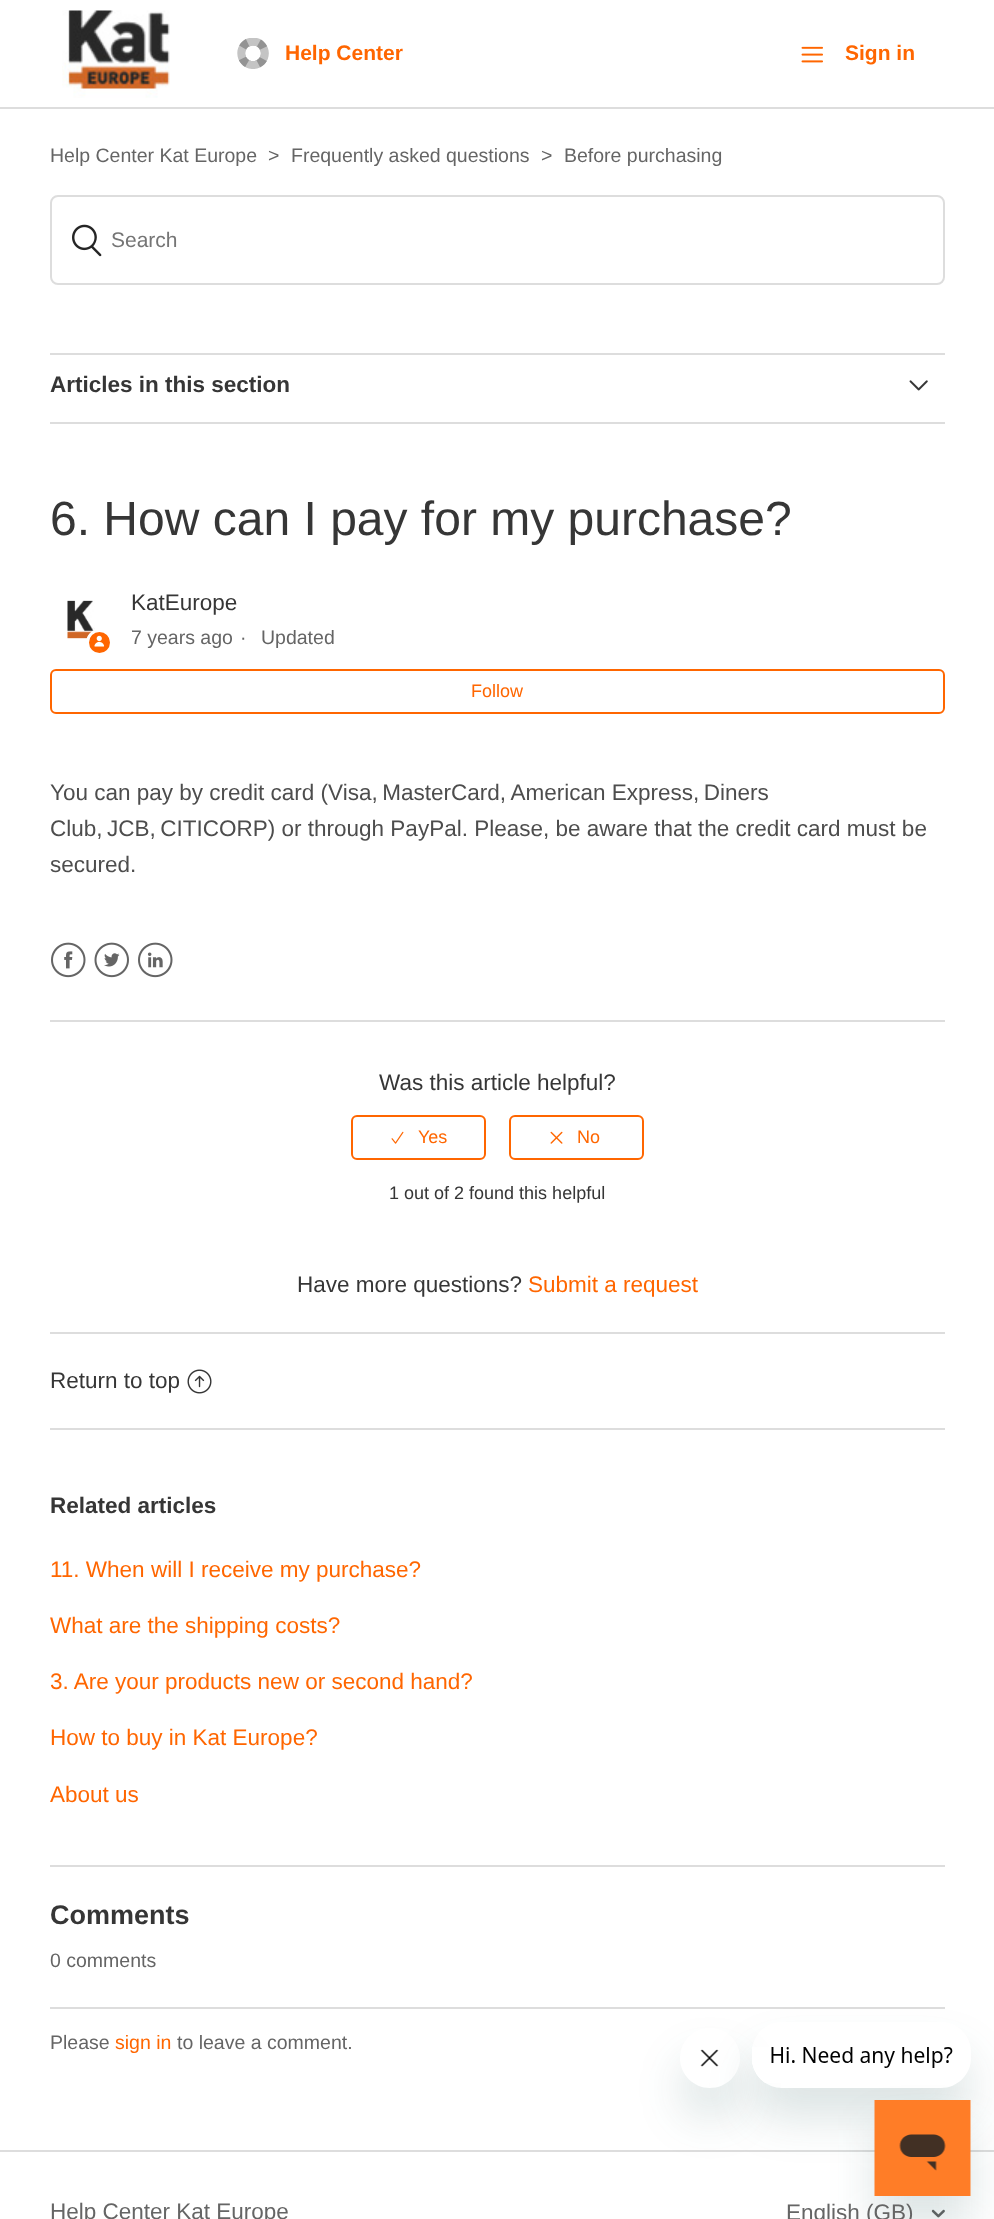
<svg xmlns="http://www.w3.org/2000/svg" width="994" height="2219">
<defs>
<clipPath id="clip1"><path d="M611 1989h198v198h-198zm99 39c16.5 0 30 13.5 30 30c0 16.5-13.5 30-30 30c-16.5 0-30-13.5-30-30c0-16.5 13.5-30 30-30z" clip-rule="evenodd"/></clipPath>
<clipPath id="clip2"><path d="M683 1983h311v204h-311zm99 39h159c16.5 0 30 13.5 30 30v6c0 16.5-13.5 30-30 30h-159c-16.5 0-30-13.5-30-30v-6c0-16.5 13.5-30 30-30z" clip-rule="evenodd"/></clipPath>
</defs>
<rect width="100%" height="100%" fill="#fff"/>
<image x="62" y="10" width="108" height="88" href="media/1.png"/>
<image x="237" y="38" width="32" height="31" href="media/2.png"/>
<text x="285" y="60" style="font-family:Liberation Sans;font-size:21px;font-weight:bold;fill:#f60">Help Center</text>
<image x="801" y="46" width="22" height="17" href="media/3.png"/>
<text x="845" y="60" style="font-family:Liberation Sans;font-size:21px;font-weight:bold;fill:#f60">Sign in</text>
<rect y="107" width="994" height="2" fill="#ddd"/>
<text x="50" y="162" style="font-family:Liberation Sans;font-size:19.5px;fill:#656565">Help Center Kat Europe</text>
<text x="268" y="162" style="font-family:Liberation Sans;font-size:19.5px;fill:#656565">&gt;</text>
<text x="291" y="162" style="font-family:Liberation Sans;font-size:19.5px;fill:#656565">Frequently asked questions</text>
<text x="541" y="162" style="font-family:Liberation Sans;font-size:19.5px;fill:#656565">&gt;</text>
<text x="564" y="162" style="font-family:Liberation Sans;font-size:19.5px;fill:#656565">Before purchasing</text>
<rect x="51" y="196" width="893" height="88" rx="7" fill="none" stroke="#ddd" stroke-width="2"/>
<image x="72" y="224" width="30" height="33" href="media/4.png"/>
<text x="111" y="247" style="font-family:Liberation Sans;font-size:21px;fill:#757575">Search</text>
<rect x="50" y="353" width="895" height="2" fill="#ddd"/>
<rect x="50" y="422" width="895" height="2" fill="#ddd"/>
<text x="50" y="392" style="font-family:Liberation Sans;font-size:22.5px;font-weight:bold;fill:#363636">Articles in this section</text>
<image x="909" y="380" width="19" height="11" href="media/5.png"/>
<text x="50" y="535" style="font-family:Liberation Sans;font-size:48px;fill:#363636">6. How can I pay for my purchase?</text>
<image x="67" y="600" width="28" height="39" href="media/6.png"/>
<circle cx="99.5" cy="642.5" r="12" fill="#f60" stroke="#fff" stroke-width="3"/>
<image x="94" y="635" width="11" height="12" href="media/7.png"/>
<text x="131" y="610" style="font-family:Liberation Sans;font-size:22.5px;fill:#363636">KatEurope</text>
<text x="131" y="644" style="font-family:Liberation Sans;font-size:19.5px;fill:#656565">7 years ago</text>
<text x="240" y="644" style="font-family:Liberation Sans;font-size:19.5px;fill:#656565">·</text>
<text x="261" y="644" style="font-family:Liberation Sans;font-size:19.5px;fill:#656565">Updated</text>
<rect x="51" y="670" width="893" height="43" rx="5" fill="none" stroke="#f60" stroke-width="2"/>
<text x="471" y="697" style="font-family:Liberation Sans;font-size:18px;fill:#f60">Follow</text>
<text x="50" y="800" style="font-family:Liberation Sans;font-size:22.5px;fill:#4d4d4d">You can pay by credit card (Visa, MasterCard, American Express, Diners</text>
<text x="50" y="836" style="font-family:Liberation Sans;font-size:22.5px;fill:#4d4d4d">Club, JCB, CITICORP) or through PayPal. Please, be aware that the credit card must be</text>
<text x="50" y="872" style="font-family:Liberation Sans;font-size:22.5px;fill:#4d4d4d">secured.</text>
<image x="51" y="942" width="35" height="36" href="media/8.png"/>
<image x="94" y="942" width="35" height="36" href="media/9.png"/>
<image x="138" y="942" width="35" height="36" href="media/10.png"/>
<rect x="50" y="1020" width="895" height="2" fill="#ddd"/>
<text x="379" y="1090" style="font-family:Liberation Sans;font-size:22.5px;fill:#363636">Was this article helpful?</text>
<rect x="352" y="1116" width="133" height="43" rx="5" fill="none" stroke="#f60" stroke-width="2"/>
<image x="391" y="1131" width="13" height="13" href="media/11.png"/>
<text x="418" y="1143" style="font-family:Liberation Sans;font-size:18px;fill:#f60">Yes</text>
<rect x="510" y="1116" width="133" height="43" rx="5" fill="none" stroke="#f60" stroke-width="2"/>
<image x="550" y="1131" width="13" height="13" href="media/12.png"/>
<text x="577" y="1143" style="font-family:Liberation Sans;font-size:18px;fill:#f60">No</text>
<text x="389" y="1199" style="font-family:Liberation Sans;font-size:18px;fill:#363636">1 out of 2 found this helpful</text>
<text x="297" y="1292" style="font-family:Liberation Sans;font-size:22.5px;fill:#363636">Have more questions?</text>
<text x="528" y="1292" style="font-family:Liberation Sans;font-size:22.5px;fill:#f60">Submit a request</text>
<rect x="50" y="1332" width="895" height="2" fill="#ddd"/>
<text x="50" y="1388" style="font-family:Liberation Sans;font-size:22.5px;fill:#363636">Return to top</text>
<image x="187" y="1369" width="25" height="25" href="media/13.png"/>
<rect x="50" y="1428" width="895" height="2" fill="#ddd"/>
<text x="50" y="1513" style="font-family:Liberation Sans;font-size:22.5px;font-weight:bold;fill:#363636">Related articles</text>
<text x="50" y="1577" style="font-family:Liberation Sans;font-size:22.5px;fill:#f60">11. When will I receive my purchase?</text>
<text x="50" y="1633" style="font-family:Liberation Sans;font-size:22.5px;fill:#f60">What are the shipping costs?</text>
<text x="50" y="1689" style="font-family:Liberation Sans;font-size:22.5px;fill:#f60">3. Are your products new or second hand?</text>
<text x="50" y="1745" style="font-family:Liberation Sans;font-size:22.5px;fill:#f60">How to buy in Kat Europe?</text>
<text x="50" y="1802" style="font-family:Liberation Sans;font-size:22.5px;fill:#f60">About us</text>
<rect x="50" y="1865" width="895" height="2" fill="#ddd"/>
<rect x="50" y="2007" width="895" height="2" fill="#ddd"/>
<text x="50" y="1924" style="font-family:Liberation Sans;font-size:27px;font-weight:bold;fill:#363636">Comments</text>
<text x="50" y="1967" style="font-family:Liberation Sans;font-size:19.5px;fill:#656565">0 comments</text>
<text x="50" y="2049" style="font-family:Liberation Sans;font-size:19.5px;fill:#656565">Please</text>
<text x="115" y="2049" style="font-family:Liberation Sans;font-size:19.5px;fill:#f60">sign in</text>
<text x="177" y="2049" style="font-family:Liberation Sans;font-size:19.5px;fill:#656565">to leave a comment.</text>
<rect y="2150" width="994" height="2" fill="#ddd"/>
<g clip-path="url(#clip1)">
<rect x="680" y="2058" width="60" height="60" rx="30" fill="#17494d26" filter="blur(22.5px)"/>
</g>
<image x="700" y="2049" width="19" height="18" href="media/15.png"/>
<g clip-path="url(#clip2)">
<rect x="752" y="2052" width="219" height="66" rx="30" fill="#17494d26" filter="blur(22.5px)"/>
</g>
<image x="752" y="2047" width="201" height="36" href="media/14.png"/>
<image x="931" y="2209" width="14" height="9" href="media/17.png"/>
<rect x="875" y="2130" width="96" height="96" fill="#17494d26" filter="blur(22.5px)"/>
<image x="874" y="2100" width="97" height="96" href="media/16.png"/>
<text x="50" y="2219" style="font-family:Liberation Sans;font-size:22.5px;fill:#656565">Help Center Kat Europe</text>
<text x="786" y="2220" style="font-family:Liberation Sans;font-size:22.5px;fill:#656565">English (GB)</text>
</svg>
